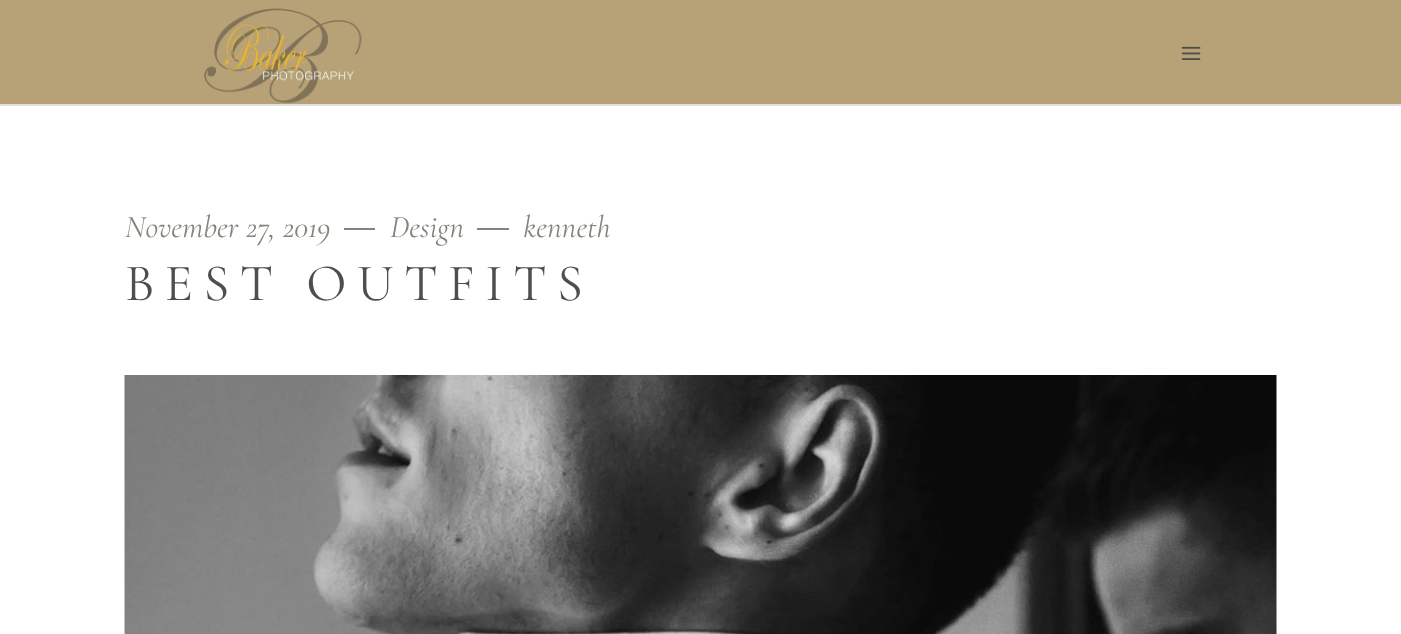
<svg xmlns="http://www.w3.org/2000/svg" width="1401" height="634">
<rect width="100%" height="100%" fill="#fff"/>
<rect width="1401" height="104" fill="#b7a277"/>
<rect y="104" width="1401" height="2" fill="#e1e1e1"/>
<image x="204" y="8" width="158" height="96" href="media/1.png"/>
<image x="1181" y="46" width="20" height="14" href="media/2.png"/>
<text x="125" y="237" style="font-family:Cormorant Garamond;font-size:31.5px;font-style:italic;fill:#84847c">November 27, 2019</text>
<rect x="344" y="228" width="31" height="2" fill="#84847c"/>
<text x="390" y="237" style="font-family:Cormorant Garamond;font-size:31.5px;font-style:italic;fill:#84847c">Design</text>
<rect x="477" y="228" width="32" height="2" fill="#84847c"/>
<text x="523" y="237" style="font-family:Cormorant Garamond;font-size:31.5px;font-style:italic;fill:#84847c">kenneth</text>
<text x="125" y="300" style="font-family:Cormorant Garamond;font-size:52.5px;letter-spacing:10.5px;fill:#4d504a">BEST OUTFITS</text>
<image x="124" y="375" width="1153" height="259" href="media/3.png"/>
</svg>
